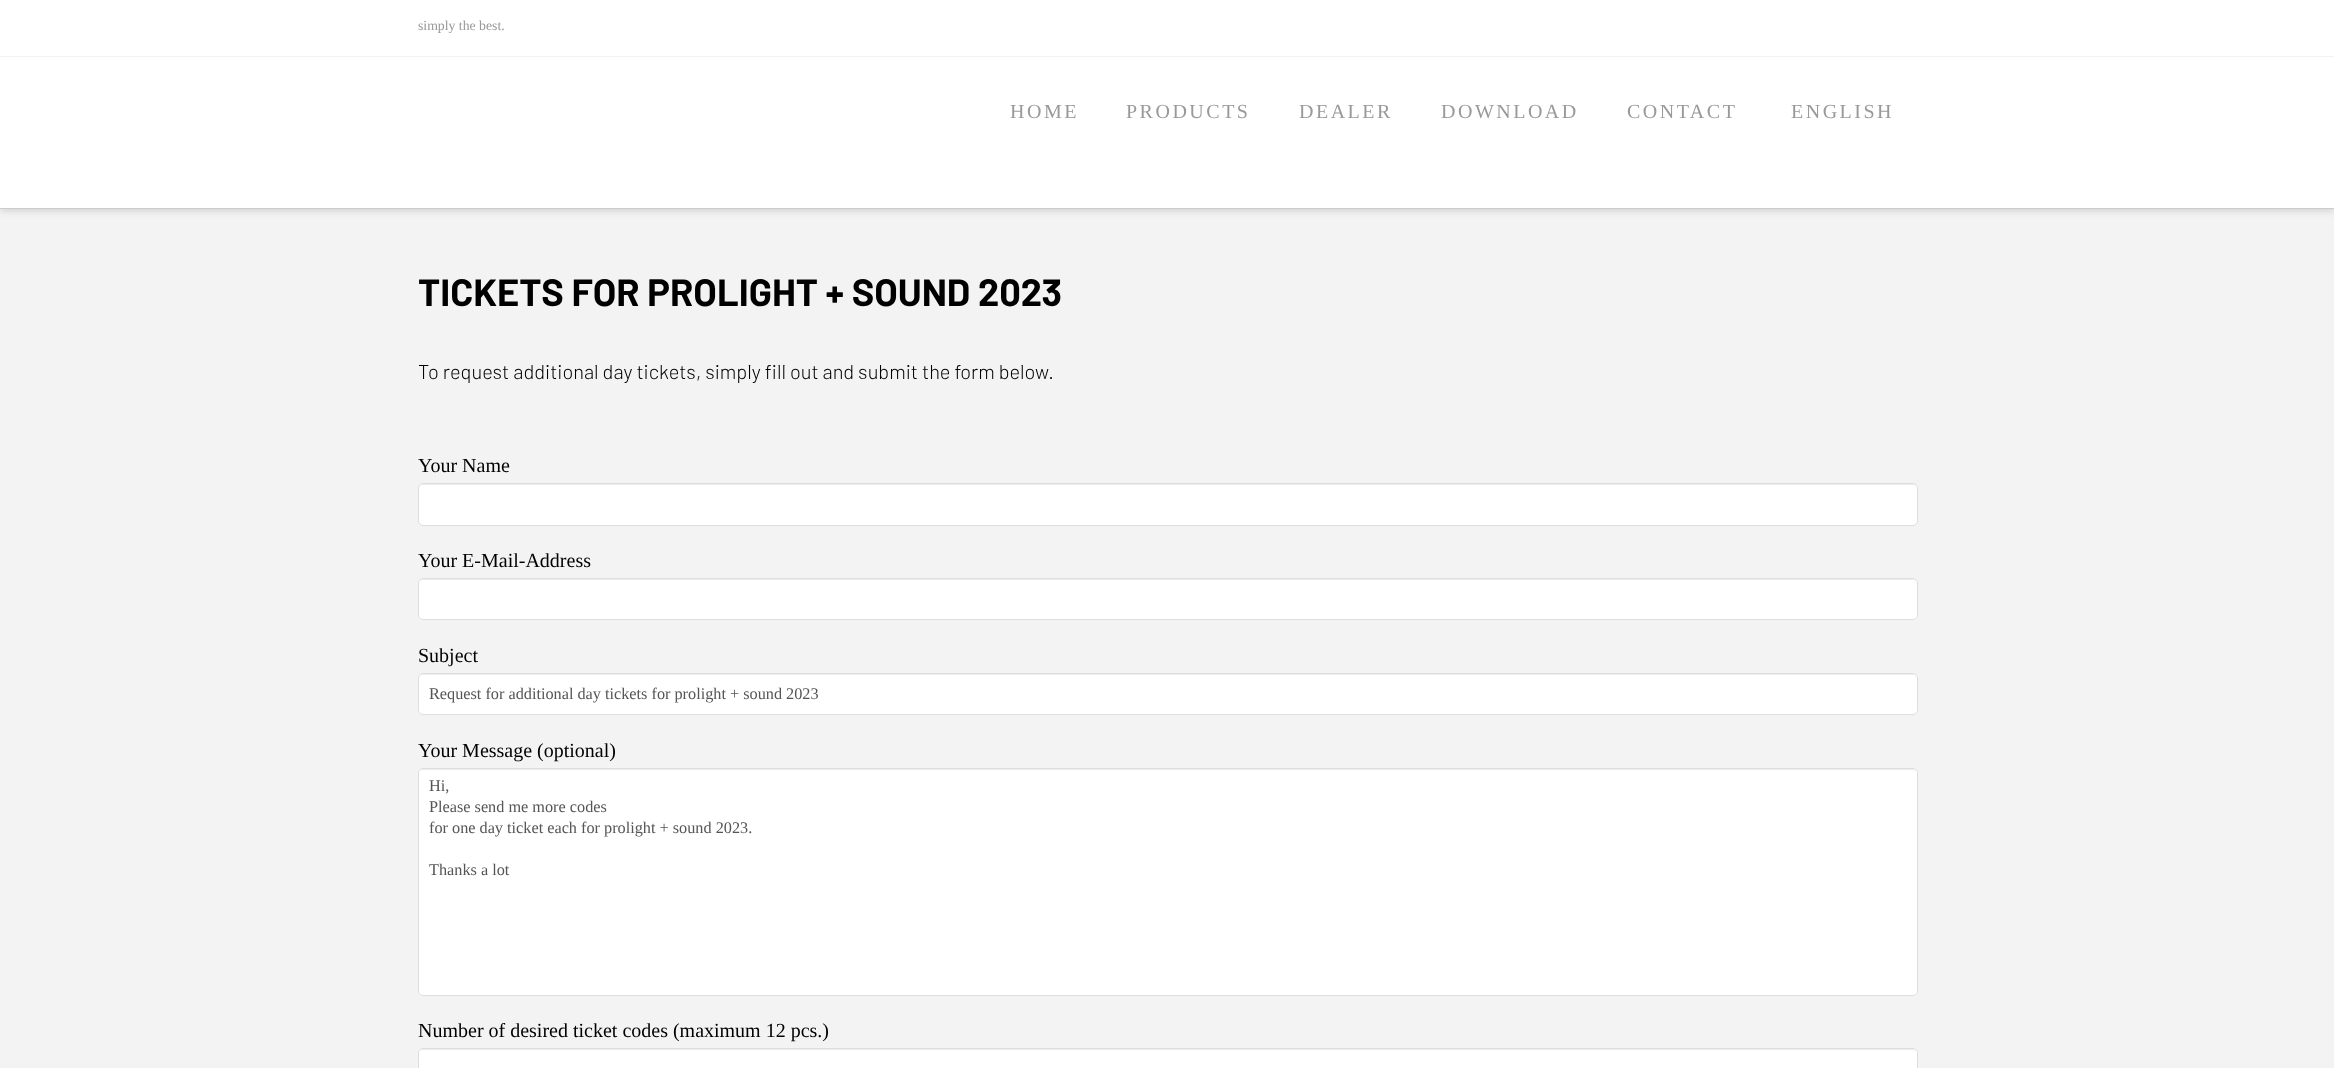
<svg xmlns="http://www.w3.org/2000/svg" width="2334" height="1068">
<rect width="100%" height="100%" fill="#f3f3f3"/>
<rect y="60" width="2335" height="151" fill="#00000021" filter="blur(3.5px)"/>
<rect width="2334" height="208" fill="#fff"/>
<rect y="56" width="2334" height="1" fill="#f2f2f2"/>
<text x="418" y="30" style="font-family:Liberation Serif;font-size:13.75px;fill:#999">simply the best.</text>
<rect y="208" width="2334" height="1" fill="#ccc"/>
<text x="1010" y="118" style="font-family:Liberation Serif;font-size:20px;letter-spacing:2.5px;fill:#999">HOME</text>
<text x="1126" y="118" style="font-family:Liberation Serif;font-size:20px;letter-spacing:2.5px;fill:#999">PRODUCTS</text>
<text x="1299" y="118" style="font-family:Liberation Serif;font-size:20px;letter-spacing:2.5px;fill:#999">DEALER</text>
<text x="1441" y="118" style="font-family:Liberation Serif;font-size:20px;letter-spacing:2.5px;fill:#999">DOWNLOAD</text>
<text x="1627" y="118" style="font-family:Liberation Serif;font-size:20px;letter-spacing:2.5px;fill:#999">CONTACT</text>
<text x="1791" y="118" style="font-family:Liberation Serif;font-size:20px;letter-spacing:2.5px;fill:#999">ENGLISH</text>
<text x="418" y="306" style="font-family:Barlow;font-size:38px;font-weight:bold;fill:#000">TICKETS FOR PROLIGHT + SOUND 2023</text>
<text x="418" y="379" style="font-family:Barlow;font-size:20px;font-weight:300;fill:#000">To request additional day tickets, simply fill out and submit the form below.</text>
<text x="418" y="472" style="font-family:Liberation Serif;font-size:20px;fill:#000">Your Name</text>
<rect x="418" y="483" width="1500" height="43" rx="5" fill="#fff"/>
<path d="M422 485h1490c3 0 4 2 4 4v-1c0-2-2-4-4-4h-1489c-2 0-4 2-4 4v1c0-2 1-4 3-4z" fill="#ececec"/>
<rect x="418.5" y="483.5" width="1499" height="42" rx="4.5" fill="none" stroke="#ddd"/>
<text x="418" y="567" style="font-family:Liberation Serif;font-size:20px;fill:#000">Your E-Mail-Address</text>
<rect x="418" y="578" width="1500" height="42" rx="5" fill="#fff"/>
<path d="M422 580h1490c3 0 4 2 4 4v-1c0-2-2-4-4-4h-1489c-2 0-4 2-4 4v1c0-2 1-4 3-4z" fill="#ececec"/>
<rect x="418.5" y="578.5" width="1499" height="41" rx="4.5" fill="none" stroke="#ddd"/>
<text x="418" y="662" style="font-family:Liberation Serif;font-size:20px;fill:#000">Subject</text>
<rect x="418" y="673" width="1500" height="42" rx="5" fill="#fff"/>
<path d="M422 675h1490c3 0 4 2 4 4v-1c0-2-2-4-4-4h-1489c-2 0-4 2-4 4v1c0-2 1-4 3-4z" fill="#ececec"/>
<rect x="418.5" y="673.5" width="1499" height="41" rx="4.5" fill="none" stroke="#ddd"/>
<text x="429" y="699" style="font-family:Liberation Serif;font-size:16.25px;fill:#555">Request for additional day tickets for prolight + sound 2023</text>
<text x="418" y="757" style="font-family:Liberation Serif;font-size:20px;fill:#000">Your Message (optional)</text>
<rect x="418" y="768" width="1500" height="228" rx="5" fill="#fff"/>
<path d="M422 770h1490c3 0 4 2 4 4v-1c0-2-2-4-4-4h-1489c-2 0-4 2-4 4v1c0-2 1-4 3-4z" fill="#ececec"/>
<rect x="418.5" y="768.5" width="1499" height="227" rx="4.5" fill="none" stroke="#ddd"/>
<text x="429" y="791" style="font-family:Liberation Serif;font-size:16.25px;fill:#555">Hi,</text>
<text x="429" y="812" style="font-family:Liberation Serif;font-size:16.25px;fill:#555">Please send me more codes</text>
<text x="429" y="833" style="font-family:Liberation Serif;font-size:16.25px;fill:#555">for one day ticket each for prolight + sound 2023.</text>
<text x="429" y="875" style="font-family:Liberation Serif;font-size:16.25px;fill:#555">Thanks a lot</text>
<text x="418" y="1037" style="font-family:Liberation Serif;font-size:20px;fill:#000">Number of desired ticket codes (maximum 12 pcs.)</text>
<rect x="418" y="1048" width="1500" height="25" rx="5" fill="#fff"/>
<path d="M422 1050h1490c3 0 4 2 4 4v-1c0-2-2-4-4-4h-1489c-2 0-4 2-4 4v1c0-2 1-4 3-4z" fill="#ececec"/>
<rect x="418.5" y="1048.5" width="1499" height="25" rx="4.5" fill="none" stroke="#ddd"/>
</svg>
